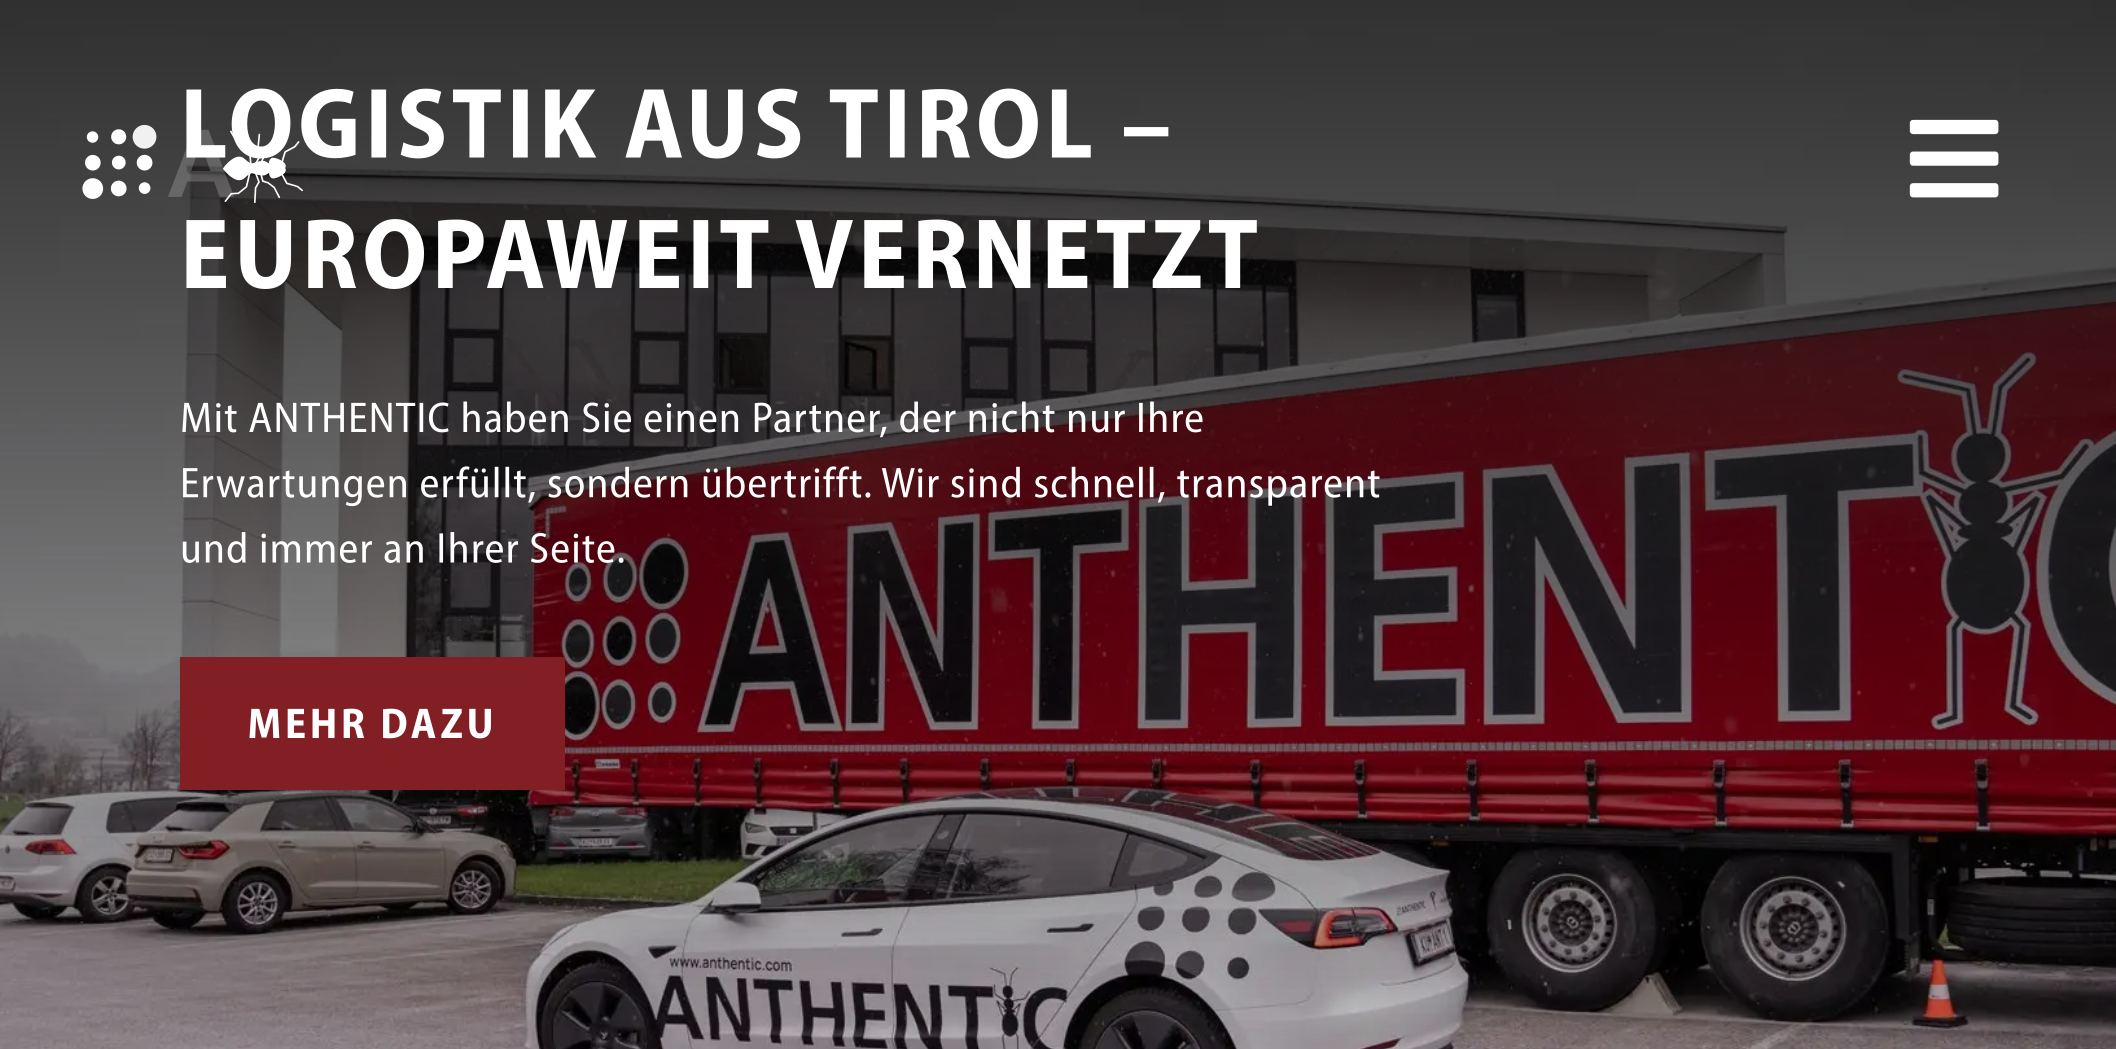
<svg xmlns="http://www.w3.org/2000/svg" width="2116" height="1049">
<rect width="100%" height="100%" fill="#fff"/>
<image x="0" y="0" width="2116" height="1049" href="media/1.png"/>
<image x="186" y="88" width="983" height="71" href="media/2.png"/>
<image x="186" y="219" width="1071" height="70" href="media/3.png"/>
<image x="182" y="401" width="1021" height="37" href="media/4.png"/>
<image x="183" y="466" width="1197" height="41" href="media/5.png"/>
<image x="182" y="532" width="442" height="31" href="media/6.png"/>
<rect x="180" y="657" width="385" height="133" fill="#811f25"/>
<image x="249" y="708" width="242" height="31" href="media/7.png"/>
<image x="82" y="124" width="221" height="79" href="media/8.png"/>
<image x="1909" y="119" width="90" height="79" href="media/9.png"/>
</svg>
